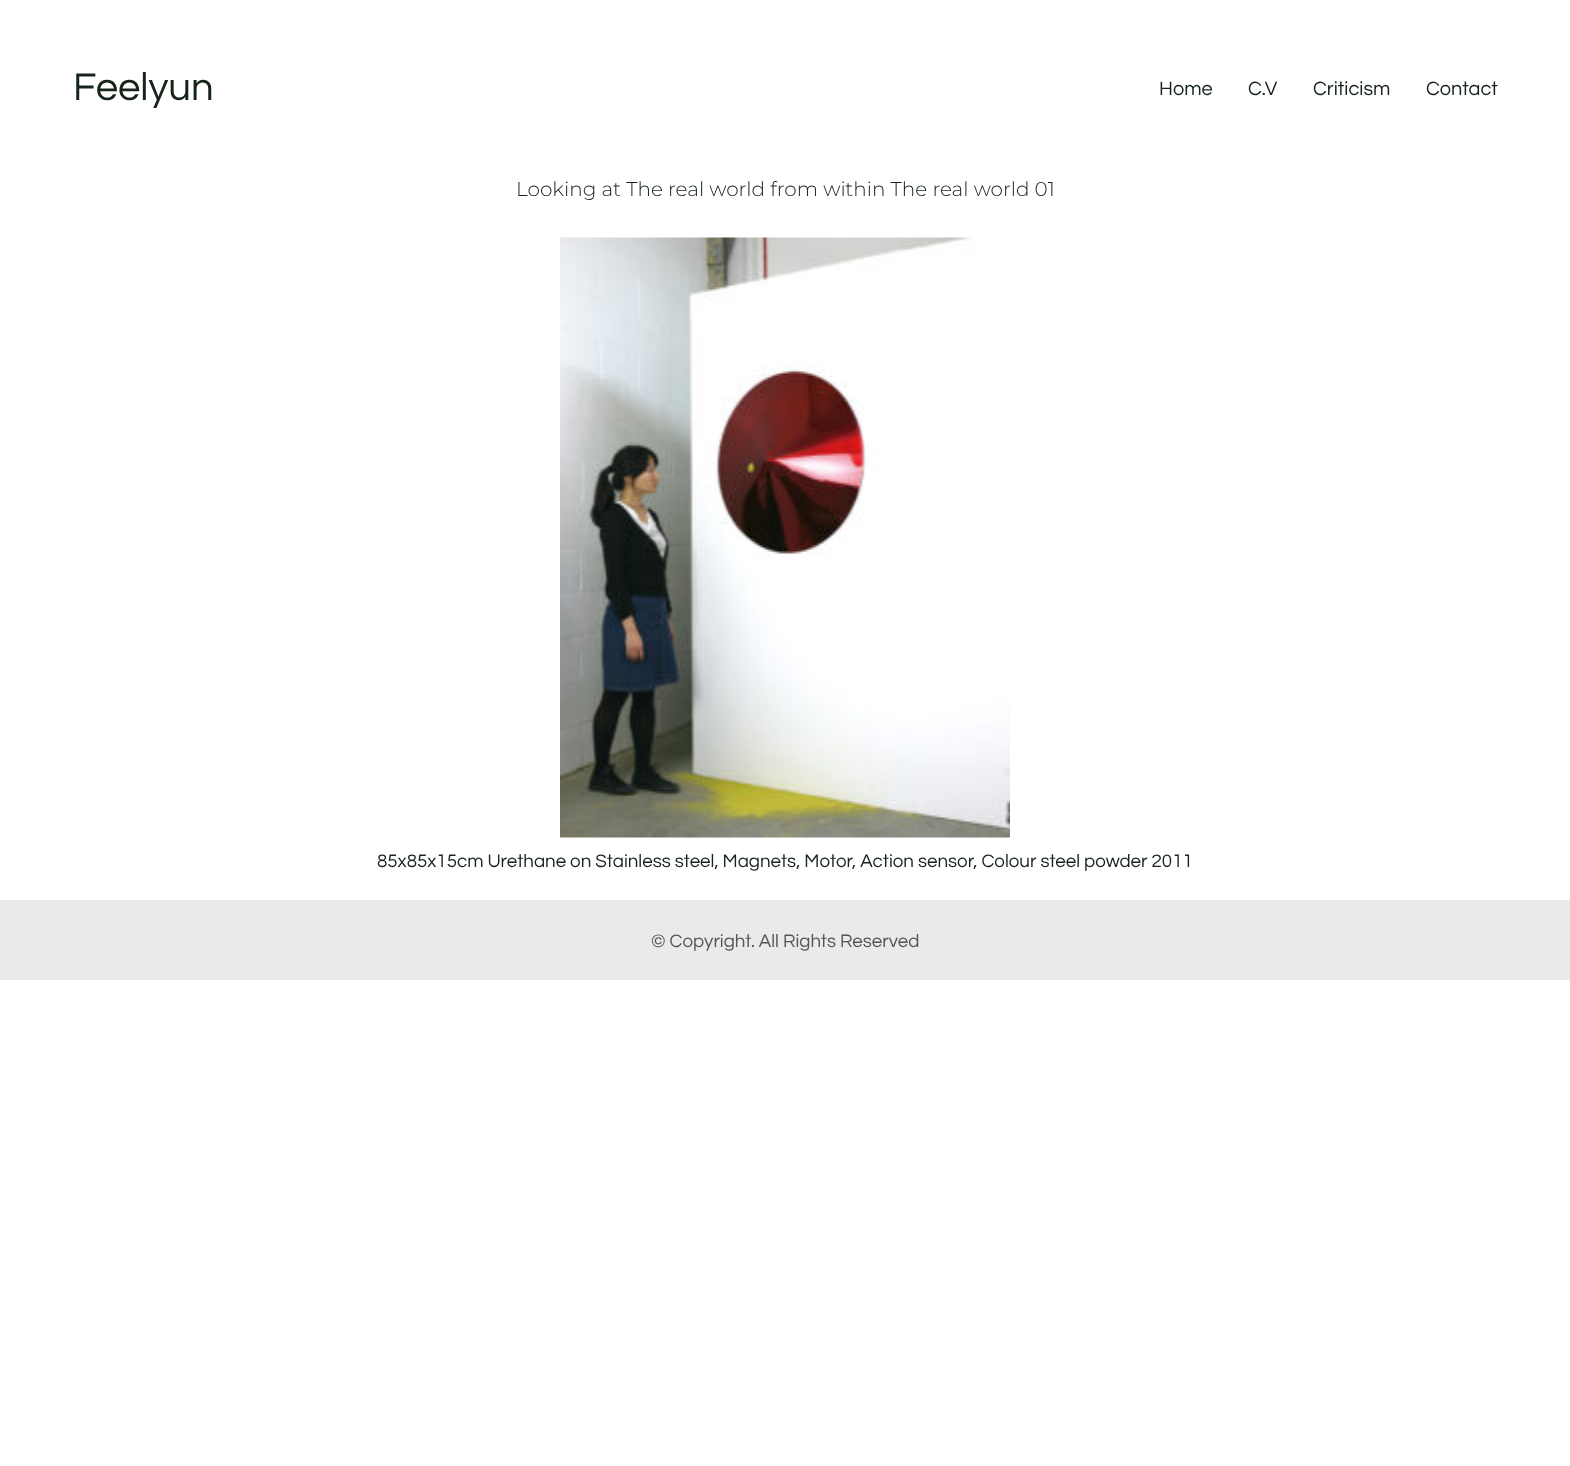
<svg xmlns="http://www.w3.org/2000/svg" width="1570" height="1466">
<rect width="100%" height="100%" fill="#fff"/>
<text x="73" y="100" style="font-family:Questrial;font-size:40px;fill:#172419">Feelyun</text>
<text x="1159" y="95" style="font-family:Questrial;font-size:20px;fill:#172419">Home</text>
<text x="1248" y="95" style="font-family:Questrial;font-size:20px;fill:#172419">C.V</text>
<text x="1313" y="95" style="font-family:Questrial;font-size:20px;fill:#172419">Criticism</text>
<text x="1426" y="95" style="font-family:Questrial;font-size:20px;fill:#172419">Contact</text>
<text x="516" y="196" style="font-family:Montserrat;font-size:20px;font-weight:300;fill:#172419">Looking at The real world from within The real world 01</text>
<image x="560" y="237" width="450" height="601" href="media/1.png"/>
<text x="377" y="867" style="font-family:Questrial;font-size:18.75px;fill:#172419">85x85x15cm Urethane on Stainless steel, Magnets, Motor, Action sensor, Colour steel powder 2011</text>
<rect y="900" width="1570" height="80" fill="#eaeaea"/>
<text x="651" y="947" style="font-family:Questrial;font-size:18.75px;fill:#555">© Copyright. All Rights Reserved</text>
</svg>
